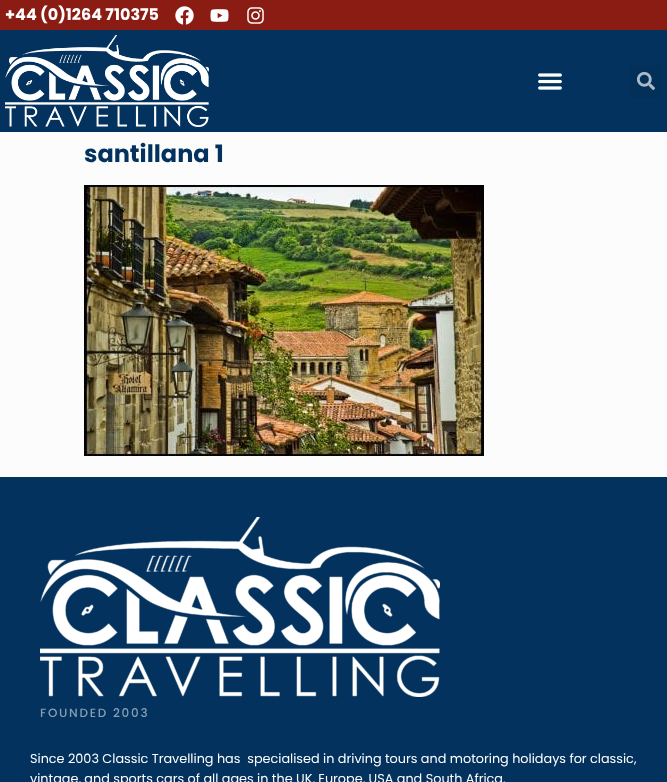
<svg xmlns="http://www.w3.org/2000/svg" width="667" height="782">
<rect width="100%" height="100%" fill="#fbfcfb"/>
<rect width="667" height="30" fill="#8b1c14"/>
<text x="5" y="20" style="font-family:Poppins;font-size:16px;font-weight:bold;fill:#fff">+44 (0)1264 710375</text>
<image x="175" y="6" width="19" height="19" href="media/1.png"/>
<image x="210" y="9" width="19" height="13" href="media/2.png"/>
<image x="247" y="7" width="17" height="17" href="media/3.png"/>
<rect y="30" width="667" height="102" fill="#02325d"/>
<image x="5" y="35" width="204" height="92" href="media/4.png"/>
<image x="538" y="73" width="24" height="17" href="media/5.png"/>
<rect x="629" y="65" width="33" height="33" rx="3" fill="#023058"/>
<image x="637" y="72" width="18" height="18" href="media/6.png"/>
<text x="84" y="162" style="font-family:Poppins;font-size:24px;font-weight:bold;fill:#02325d">santillana 1</text>
<image x="84" y="185" width="400" height="271" href="media/7.png"/>
<rect y="477" width="667" height="305" fill="#02325d"/>
<image x="40" y="517" width="400" height="180" href="media/8.png"/>
<text x="40" y="717" style="font-family:Poppins;font-size:12px;font-weight:500;letter-spacing:1.75px;fill:#889fb3">FOUNDED 2003</text>
<text x="30" y="763" style="font-family:Poppins;font-size:12.8px;fill:#fff" xml:space="preserve">Since 2003 Classic Travelling has  specialised in driving tours and motoring holidays for classic,</text>
<text x="30" y="783" style="font-family:Poppins;font-size:12.8px;fill:#fff">vintage, and sports cars of all ages in the UK, Europe, USA and South Africa.</text>
</svg>
